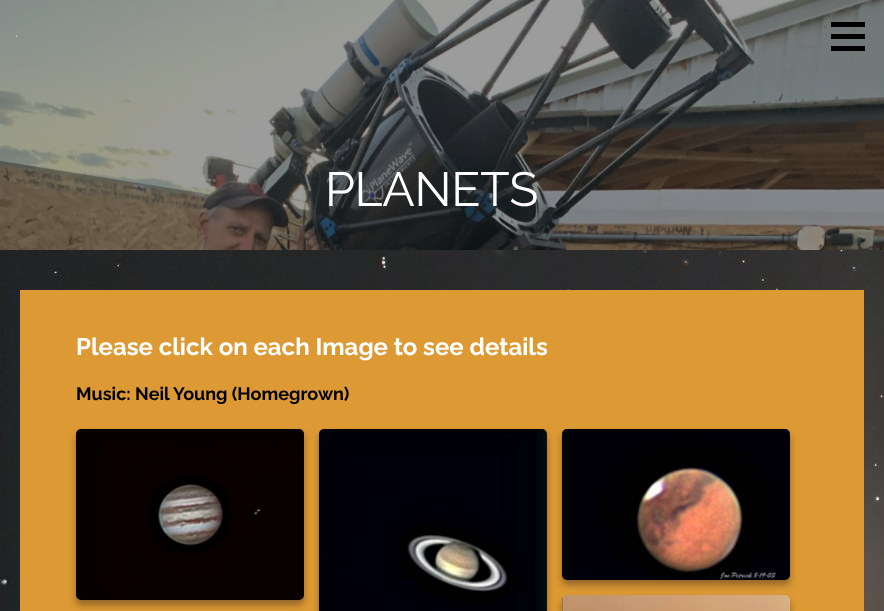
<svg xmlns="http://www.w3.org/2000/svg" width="884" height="611">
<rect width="100%" height="100%" fill="#fff"/>
<image x="0" y="250" width="884" height="361" href="media/1.png"/>
<image x="0" y="0" width="884" height="250" href="media/2.png"/>
<text x="15" y="37" style="font-family:Raleway;font-size:14px;font-weight:300;letter-spacing:-0.25px;fill:#fff">.</text>
<rect x="831" y="22" width="34" height="5" fill="#000"/>
<rect x="831" y="34" width="34" height="5" fill="#000"/>
<rect x="831" y="46" width="34" height="5" fill="#000"/>
<text x="325" y="206" style="font-family:Raleway;font-size:48px;letter-spacing:-0.25px;fill:#fff">PLANETS</text>
<rect x="20" y="290" width="844" height="321" fill="#d93"/>
<text x="76" y="355" style="font-family:Raleway;font-size:24px;font-weight:bold;fill:#fff">Please click on each Image to see details</text>
<text x="76" y="400" style="font-family:Raleway;font-size:18px;font-weight:bold;fill:#000">Music: Neil Young (Homegrown)</text>
<rect x="76" y="434" width="228" height="171" rx="5" fill="#22191966" filter="blur(3.5px)"/>
<image x="76" y="429" width="228" height="171" href="media/3.png"/>
<rect x="319" y="434" width="228" height="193" rx="5" fill="#22191966" filter="blur(3.5px)"/>
<image x="319" y="429" width="228" height="182" href="media/4.png"/>
<rect x="562" y="434" width="228" height="151" rx="5" fill="#22191966" filter="blur(3.5px)"/>
<image x="562" y="429" width="228" height="151" href="media/5.png"/>
<rect x="562" y="600" width="228" height="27" rx="5" fill="#22191966" filter="blur(3.5px)"/>
<image x="562" y="595" width="228" height="16" href="media/6.png"/>
</svg>
